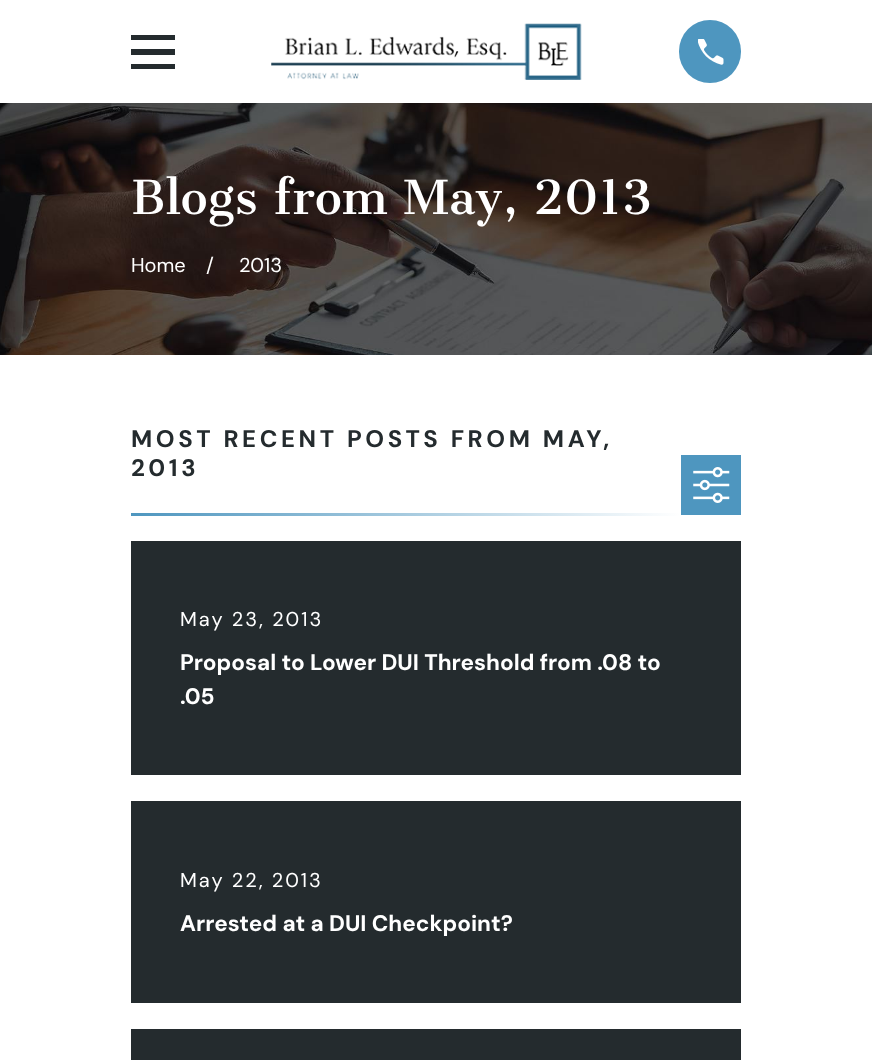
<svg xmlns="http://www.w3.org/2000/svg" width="872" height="1060">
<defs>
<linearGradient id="g1" gradientUnits="userSpaceOnUse" x1="131" y1="514" x2="681" y2="514"><stop offset="0" stop-color="#4e96bf"/><stop offset="1" stop-color="#fff"/></linearGradient>
</defs>
<rect width="100%" height="100%" fill="#fff"/>
<path d="M131 35v5h44v-5zm0 14v6h44v-6zm0 15v5h44v-5z" fill="#242b2e"/>
<image x="271" y="23" width="311" height="57" href="media/1.png"/>
<rect x="679" y="20" width="62" height="63" rx="31" fill="#4e96bf"/>
<image x="698" y="39" width="26" height="26" href="media/2.png"/>
<image x="0" y="103" width="872" height="252" href="media/3.png"/>
<text x="131" y="214" style="font-family:Cantata One;font-size:46px;fill:#fff">Blogs from May, 2013</text>
<text x="131" y="272" style="font-family:DM Sans;font-size:20px;fill:#fff">Home</text>
<text x="206" y="272" style="font-family:DM Sans;font-size:20px;fill:#fff">/</text>
<text x="239" y="272" style="font-family:DM Sans;font-size:20px;fill:#fff">2013</text>
<text x="131" y="447" style="font-family:DM Sans;font-size:24px;font-weight:bold;letter-spacing:3.6px;fill:#242b2e">MOST RECENT POSTS FROM MAY,</text>
<text x="131" y="476" style="font-family:DM Sans;font-size:24px;font-weight:bold;letter-spacing:3.6px;fill:#242b2e">2013</text>
<rect x="131" y="513" width="550" height="3" fill="url(#g1)"/>
<rect x="681" y="455" width="60" height="60" fill="#4e96bf"/>
<image x="693" y="467" width="37" height="36" href="media/4.png"/>
<rect x="131" y="541" width="610" height="234" fill="#242b2e"/>
<text x="180" y="626" style="font-family:DM Sans;font-size:20px;letter-spacing:2px;fill:#fff">May 23, 2013</text>
<text x="180" y="670" style="font-family:DM Sans;font-size:22.5px;font-weight:bold;fill:#fff">Proposal to Lower DUI Threshold from .08 to</text>
<text x="180" y="704" style="font-family:DM Sans;font-size:22.5px;font-weight:bold;fill:#fff">.05</text>
<rect x="131" y="801" width="610" height="202" fill="#242b2e"/>
<text x="180" y="887" style="font-family:DM Sans;font-size:20px;letter-spacing:2px;fill:#fff">May 22, 2013</text>
<text x="180" y="931" style="font-family:DM Sans;font-size:22.5px;font-weight:bold;fill:#fff">Arrested at a DUI Checkpoint?</text>
<rect x="131" y="1029" width="610" height="31" fill="#242b2e"/>
</svg>
